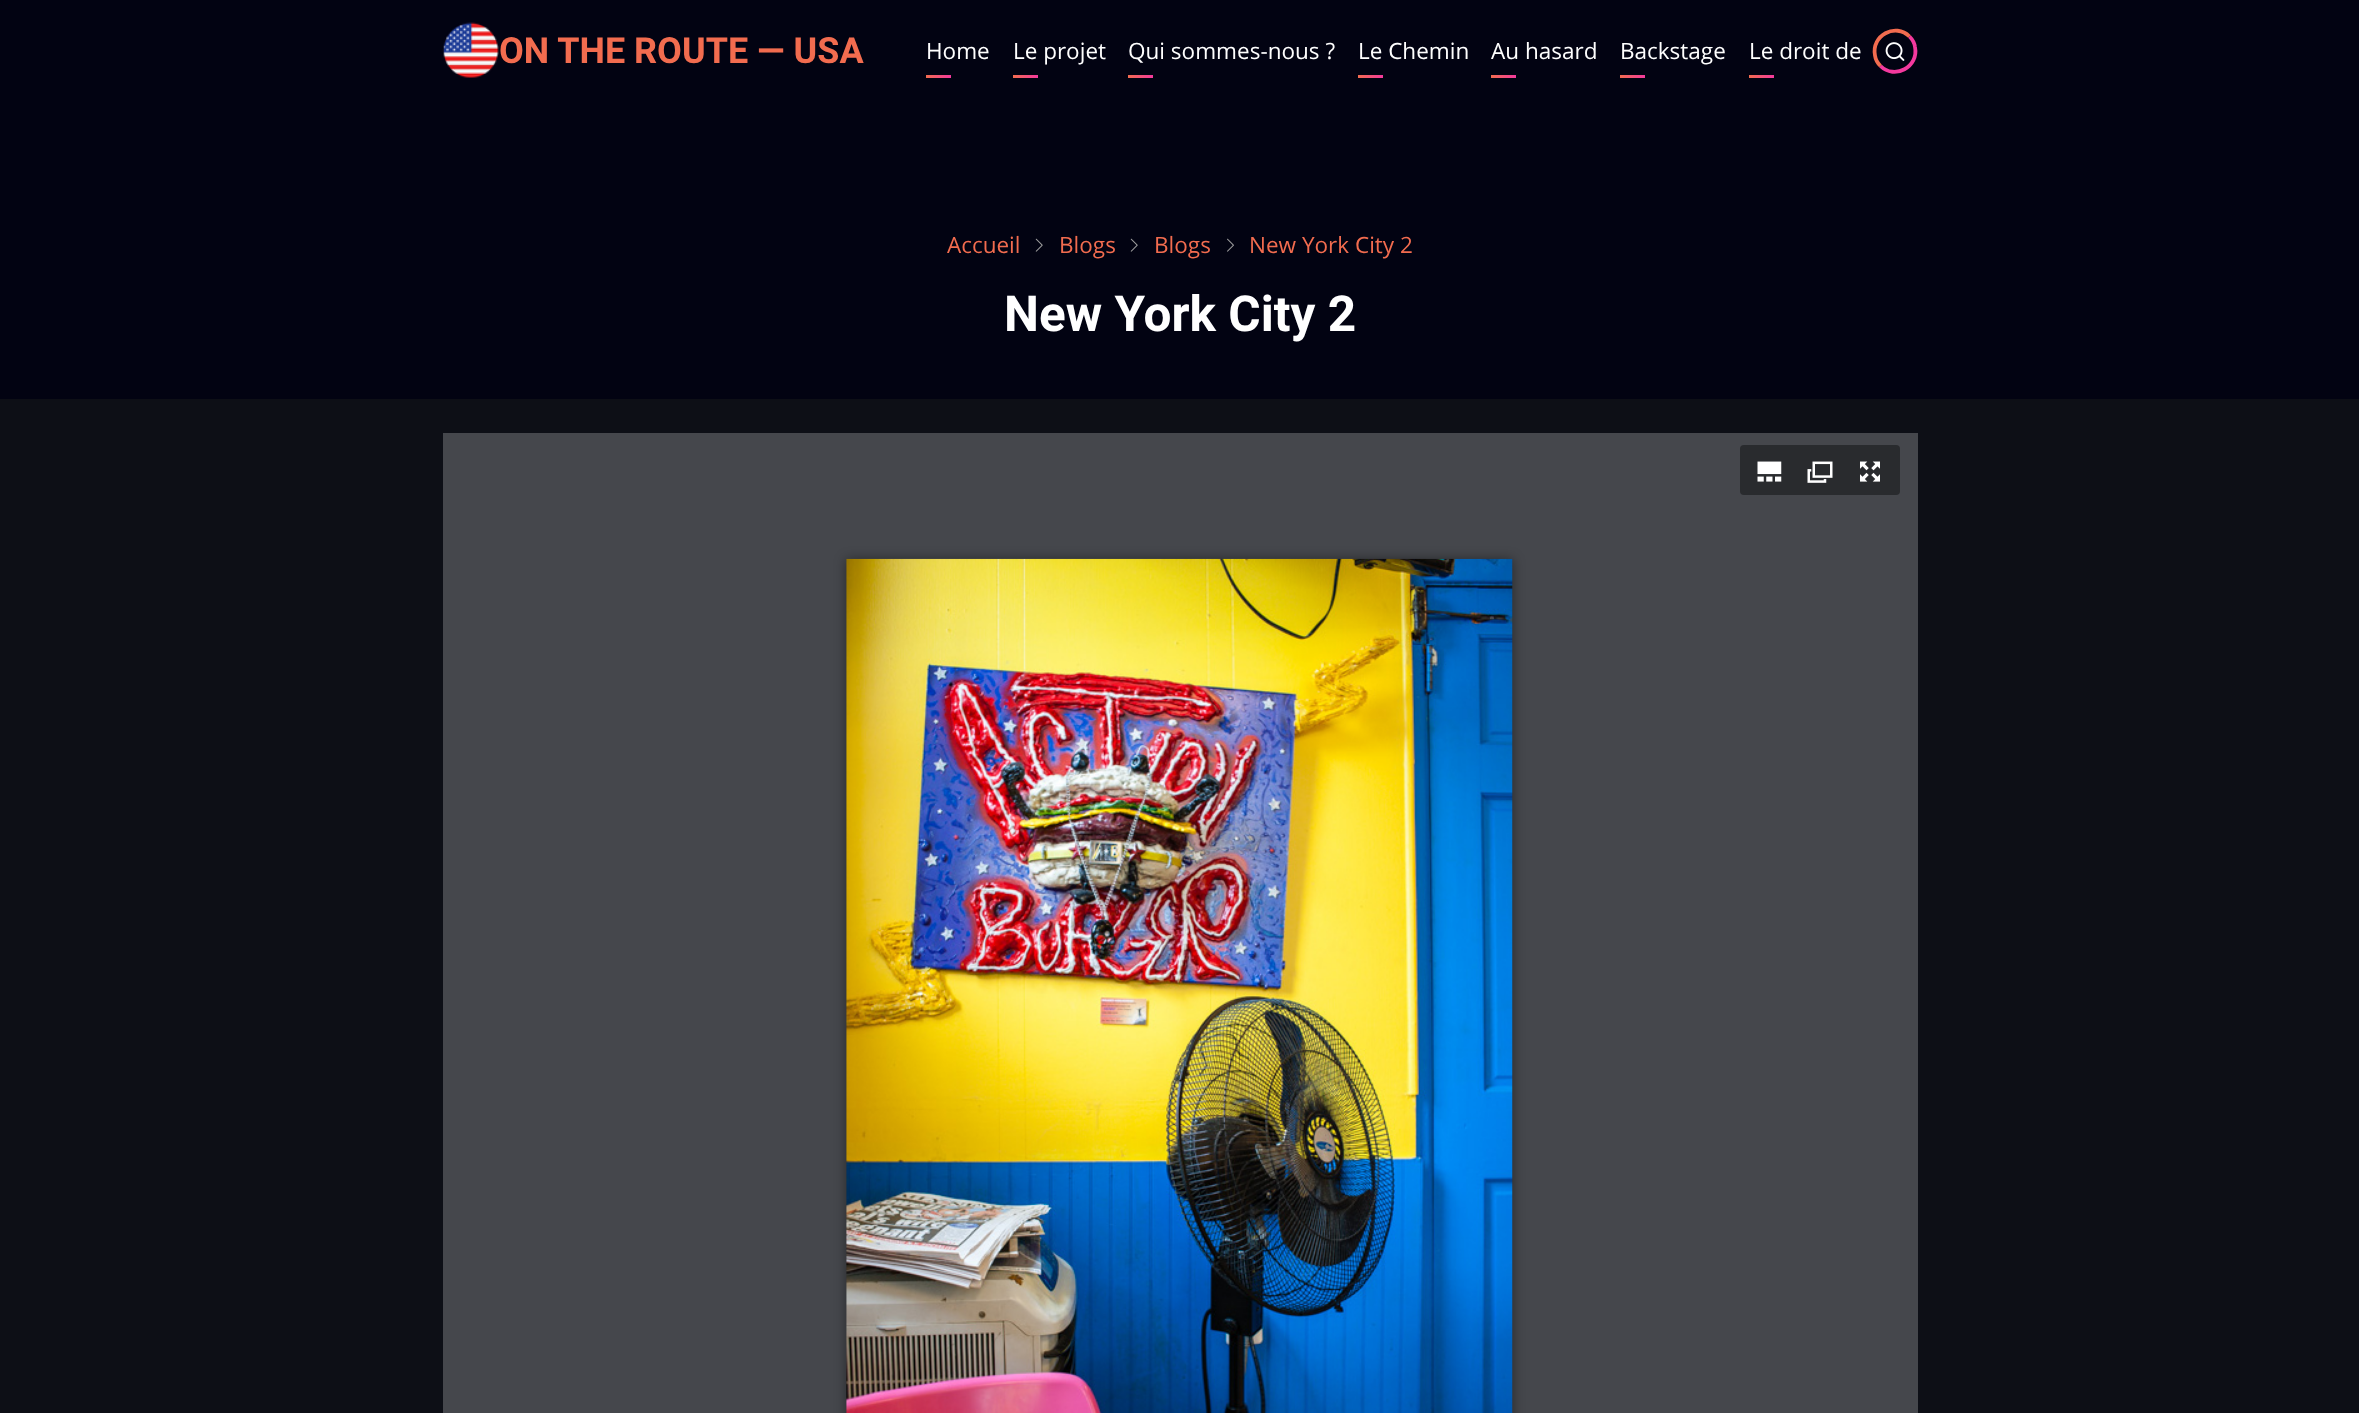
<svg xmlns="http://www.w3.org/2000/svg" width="2359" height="1413">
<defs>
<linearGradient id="g1" gradientUnits="userSpaceOnUse" x1="926" y1="76" x2="951" y2="76"><stop offset="0" stop-color="#f26c4f"/><stop offset="1" stop-color="#f4399e"/></linearGradient>
<linearGradient id="g2" gradientUnits="userSpaceOnUse" x1="1013" y1="76" x2="1038" y2="76"><stop offset="0" stop-color="#f26c4f"/><stop offset="1" stop-color="#f4399e"/></linearGradient>
<linearGradient id="g3" gradientUnits="userSpaceOnUse" x1="1128" y1="76" x2="1153" y2="76"><stop offset="0" stop-color="#f26c4f"/><stop offset="1" stop-color="#f4399e"/></linearGradient>
<linearGradient id="g4" gradientUnits="userSpaceOnUse" x1="1358" y1="76" x2="1383" y2="76"><stop offset="0" stop-color="#f26c4f"/><stop offset="1" stop-color="#f4399e"/></linearGradient>
<linearGradient id="g5" gradientUnits="userSpaceOnUse" x1="1491" y1="76" x2="1516" y2="76"><stop offset="0" stop-color="#f26c4f"/><stop offset="1" stop-color="#f4399e"/></linearGradient>
<linearGradient id="g6" gradientUnits="userSpaceOnUse" x1="1620" y1="76" x2="1645" y2="76"><stop offset="0" stop-color="#f26c4f"/><stop offset="1" stop-color="#f4399e"/></linearGradient>
<linearGradient id="g7" gradientUnits="userSpaceOnUse" x1="1749" y1="76" x2="1774" y2="76"><stop offset="0" stop-color="#f26c4f"/><stop offset="1" stop-color="#f4399e"/></linearGradient>
</defs>
<rect width="100%" height="100%" fill="#0d0f16"/>
<rect width="2359" height="399" fill="#020312"/>
<image x="442" y="22" width="57" height="56" href="media/1.png"/>
<text x="499" y="63" style="font-family:Roboto;font-size:36px;font-weight:bold;fill:#f26c4f">ON THE ROUTE — USA</text>
<text x="926" y="59" style="font-family:Open Sans;font-size:22.5px;fill:#fff">Home</text>
<rect x="926" y="75" width="25" height="3" fill="url(#g1)"/>
<text x="1013" y="59" style="font-family:Open Sans;font-size:22.5px;fill:#fff">Le projet</text>
<rect x="1013" y="75" width="25" height="3" fill="url(#g2)"/>
<text x="1128" y="59" style="font-family:Open Sans;font-size:22.5px;fill:#fff">Qui sommes-nous ?</text>
<rect x="1128" y="75" width="25" height="3" fill="url(#g3)"/>
<text x="1358" y="59" style="font-family:Open Sans;font-size:22.5px;fill:#fff">Le Chemin</text>
<rect x="1358" y="75" width="25" height="3" fill="url(#g4)"/>
<text x="1491" y="59" style="font-family:Open Sans;font-size:22.5px;fill:#fff">Au hasard</text>
<rect x="1491" y="75" width="25" height="3" fill="url(#g5)"/>
<text x="1620" y="59" style="font-family:Open Sans;font-size:22.5px;fill:#fff">Backstage</text>
<rect x="1620" y="75" width="25" height="3" fill="url(#g6)"/>
<text x="1749" y="59" style="font-family:Open Sans;font-size:22.5px;fill:#fff">Le droit de</text>
<rect x="1749" y="75" width="25" height="3" fill="url(#g7)"/>
<path d="M1909.5 36.5c3 3 5 6.5 5.5 10.5c4 20-20.5 33-34.5 19" fill="none" stroke="#f4399e" stroke-width="3.8"/>
<path d="M1880.5 66c-3-3-5-6.5-5.5-10.5c-4-20 20.5-33 34.5-19" fill="none" stroke="#f26c4f" stroke-width="3.8"/>
<image x="1885" y="42" width="20" height="19" href="media/2.png"/>
<text x="947" y="253" style="font-family:Open Sans;font-size:22.5px;fill:#f26c4f">Accueil</text>
<image x="1035" y="238" width="8" height="14" href="media/3.png"/>
<text x="1059" y="253" style="font-family:Open Sans;font-size:22.5px;fill:#f26c4f">Blogs</text>
<image x="1130" y="238" width="8" height="14" href="media/3.png"/>
<text x="1154" y="253" style="font-family:Open Sans;font-size:22.5px;fill:#f26c4f">Blogs</text>
<image x="1227" y="238" width="7" height="14" href="media/4.png"/>
<text x="1249" y="253" style="font-family:Open Sans;font-size:22.5px;fill:#f26c4f">New York City 2</text>
<text x="1004" y="331" style="font-family:Roboto;font-size:49.5px;font-weight:bold;fill:#fff">New York City 2</text>
<rect x="443" y="433" width="1475" height="980" fill="#45474c"/>
<rect x="1740" y="445" width="160" height="50" rx="4" fill="#292b2e"/>
<image x="1757" y="461" width="25" height="21" href="media/5.png"/>
<image x="1807" y="461" width="26" height="22" href="media/6.png"/>
<image x="1860" y="461" width="20" height="21" href="media/7.png"/>
<rect x="846" y="559" width="667" height="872" fill="#00000066" filter="blur(6px)"/>
<image x="846" y="558" width="667" height="855" href="media/8.png"/>
</svg>
